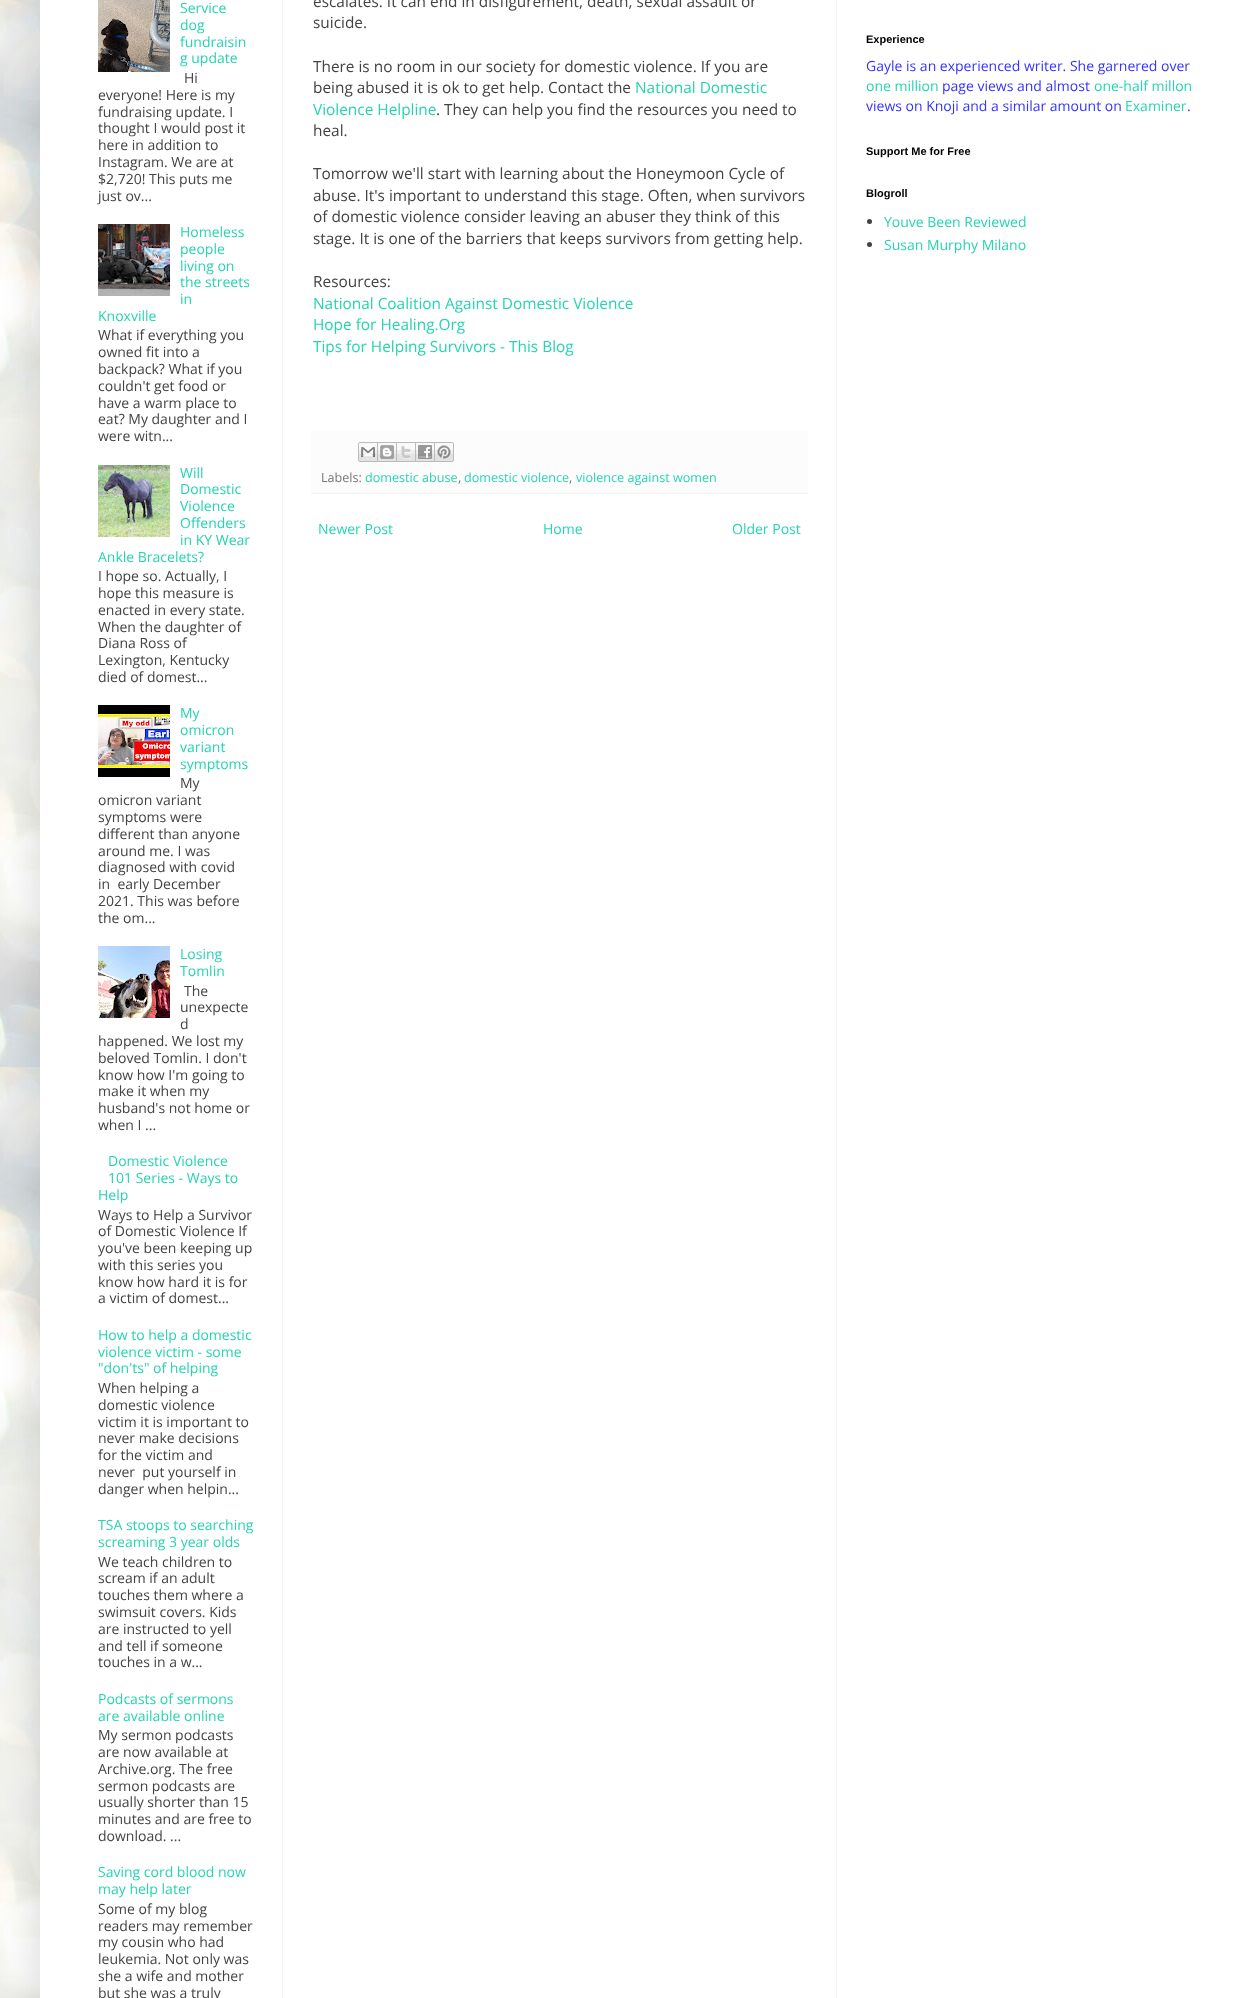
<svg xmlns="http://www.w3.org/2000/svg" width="1240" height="1998">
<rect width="100%" height="100%" fill="#fff"/>
<image x="0" y="0" width="40" height="1998" href="media/1.png"/>
<rect x="40" y="-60" width="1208" height="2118" fill="#00000026" filter="blur(20px)"/>
<rect x="40" width="1200" height="1998" fill="#fff"/>
<image x="98" y="0" width="72" height="72" href="media/2.png"/>
<text x="180" y="13" style="font-family:Open Sans;font-size:14px;fill:#26d4b1">Service</text>
<text x="180" y="30" style="font-family:Open Sans;font-size:14px;fill:#26d4b1">dog</text>
<text x="180" y="47" style="font-family:Open Sans;font-size:14px;fill:#26d4b1">fundraisin</text>
<text x="180" y="63" style="font-family:Open Sans;font-size:14px;fill:#26d4b1">g update</text>
<text x="184" y="83" style="font-family:Open Sans;font-size:14px;fill:#434343">Hi</text>
<text x="98" y="100" style="font-family:Open Sans;font-size:14px;fill:#434343">everyone! Here is my</text>
<text x="98" y="117" style="font-family:Open Sans;font-size:14px;fill:#434343">fundraising update. I</text>
<text x="98" y="133" style="font-family:Open Sans;font-size:14px;fill:#434343">thought I would post it</text>
<text x="98" y="150" style="font-family:Open Sans;font-size:14px;fill:#434343">here in addition to</text>
<text x="98" y="167" style="font-family:Open Sans;font-size:14px;fill:#434343">Instagram. We are at</text>
<text x="98" y="184" style="font-family:Open Sans;font-size:14px;fill:#434343">$2,720! This puts me</text>
<text x="98" y="201" style="font-family:Open Sans;font-size:14px;fill:#434343">just ov...</text>
<image x="98" y="224" width="72" height="72" href="media/3.png"/>
<text x="180" y="237" style="font-family:Open Sans;font-size:14px;fill:#26d4b1">Homeless</text>
<text x="180" y="254" style="font-family:Open Sans;font-size:14px;fill:#26d4b1">people</text>
<text x="180" y="271" style="font-family:Open Sans;font-size:14px;fill:#26d4b1">living on</text>
<text x="180" y="287" style="font-family:Open Sans;font-size:14px;fill:#26d4b1">the streets</text>
<text x="180" y="304" style="font-family:Open Sans;font-size:14px;fill:#26d4b1">in</text>
<text x="98" y="321" style="font-family:Open Sans;font-size:14px;fill:#26d4b1">Knoxville</text>
<text x="98" y="340" style="font-family:Open Sans;font-size:14px;fill:#434343">What if everything you</text>
<text x="98" y="357" style="font-family:Open Sans;font-size:14px;fill:#434343">owned fit into a</text>
<text x="98" y="374" style="font-family:Open Sans;font-size:14px;fill:#434343">backpack? What if you</text>
<text x="98" y="391" style="font-family:Open Sans;font-size:14px;fill:#434343">couldn't get food or</text>
<text x="98" y="408" style="font-family:Open Sans;font-size:14px;fill:#434343">have a warm place to</text>
<text x="98" y="424" style="font-family:Open Sans;font-size:14px;fill:#434343">eat? My daughter and I</text>
<text x="98" y="441" style="font-family:Open Sans;font-size:14px;fill:#434343">were witn...</text>
<image x="98" y="465" width="72" height="72" href="media/4.png"/>
<text x="180" y="478" style="font-family:Open Sans;font-size:14px;fill:#26d4b1">Will</text>
<text x="180" y="494" style="font-family:Open Sans;font-size:14px;fill:#26d4b1">Domestic</text>
<text x="180" y="511" style="font-family:Open Sans;font-size:14px;fill:#26d4b1">Violence</text>
<text x="180" y="528" style="font-family:Open Sans;font-size:14px;fill:#26d4b1">Offenders</text>
<text x="180" y="545" style="font-family:Open Sans;font-size:14px;fill:#26d4b1">in KY Wear</text>
<text x="98" y="562" style="font-family:Open Sans;font-size:14px;fill:#26d4b1">Ankle Bracelets?</text>
<text x="98" y="581" style="font-family:Open Sans;font-size:14px;fill:#434343">I hope so. Actually, I</text>
<text x="98" y="598" style="font-family:Open Sans;font-size:14px;fill:#434343">hope this measure is</text>
<text x="98" y="615" style="font-family:Open Sans;font-size:14px;fill:#434343">enacted in every state.</text>
<text x="98" y="632" style="font-family:Open Sans;font-size:14px;fill:#434343">When the daughter of</text>
<text x="98" y="648" style="font-family:Open Sans;font-size:14px;fill:#434343">Diana Ross of</text>
<text x="98" y="665" style="font-family:Open Sans;font-size:14px;fill:#434343">Lexington, Kentucky</text>
<text x="98" y="682" style="font-family:Open Sans;font-size:14px;fill:#434343">died of domest...</text>
<image x="98" y="705" width="72" height="72" href="media/5.png"/>
<text x="180" y="718" style="font-family:Open Sans;font-size:14px;fill:#26d4b1">My</text>
<text x="180" y="735" style="font-family:Open Sans;font-size:14px;fill:#26d4b1">omicron</text>
<text x="180" y="752" style="font-family:Open Sans;font-size:14px;fill:#26d4b1">variant</text>
<text x="180" y="769" style="font-family:Open Sans;font-size:14px;fill:#26d4b1">symptoms</text>
<text x="180" y="788" style="font-family:Open Sans;font-size:14px;fill:#434343">My</text>
<text x="98" y="805" style="font-family:Open Sans;font-size:14px;fill:#434343">omicron variant</text>
<text x="98" y="822" style="font-family:Open Sans;font-size:14px;fill:#434343">symptoms were</text>
<text x="98" y="839" style="font-family:Open Sans;font-size:14px;fill:#434343">different than anyone</text>
<text x="98" y="856" style="font-family:Open Sans;font-size:14px;fill:#434343">around me. I was</text>
<text x="98" y="872" style="font-family:Open Sans;font-size:14px;fill:#434343">diagnosed with covid</text>
<text x="98" y="889" style="font-family:Open Sans;font-size:14px;fill:#434343" xml:space="preserve">in  early December</text>
<text x="98" y="906" style="font-family:Open Sans;font-size:14px;fill:#434343">2021. This was before</text>
<text x="98" y="923" style="font-family:Open Sans;font-size:14px;fill:#434343">the om...</text>
<image x="98" y="946" width="72" height="72" href="media/6.png"/>
<text x="180" y="959" style="font-family:Open Sans;font-size:14px;fill:#26d4b1">Losing</text>
<text x="180" y="976" style="font-family:Open Sans;font-size:14px;fill:#26d4b1">Tomlin</text>
<text x="184" y="996" style="font-family:Open Sans;font-size:14px;fill:#434343">The</text>
<text x="180" y="1012" style="font-family:Open Sans;font-size:14px;fill:#434343">unexpecte</text>
<text x="180" y="1029" style="font-family:Open Sans;font-size:14px;fill:#434343">d</text>
<text x="98" y="1046" style="font-family:Open Sans;font-size:14px;fill:#434343">happened. We lost my</text>
<text x="98" y="1063" style="font-family:Open Sans;font-size:14px;fill:#434343">beloved Tomlin. I don't</text>
<text x="98" y="1080" style="font-family:Open Sans;font-size:14px;fill:#434343">know how I'm going to</text>
<text x="98" y="1096" style="font-family:Open Sans;font-size:14px;fill:#434343">make it when my</text>
<text x="98" y="1113" style="font-family:Open Sans;font-size:14px;fill:#434343">husband's not home or</text>
<text x="98" y="1130" style="font-family:Open Sans;font-size:14px;fill:#434343">when I ...</text>
<text x="108" y="1166" style="font-family:Open Sans;font-size:14px;fill:#26d4b1">Domestic Violence</text>
<text x="108" y="1183" style="font-family:Open Sans;font-size:14px;fill:#26d4b1">101 Series - Ways to</text>
<text x="98" y="1200" style="font-family:Open Sans;font-size:14px;fill:#26d4b1">Help</text>
<text x="98" y="1220" style="font-family:Open Sans;font-size:14px;fill:#434343">Ways to Help a Survivor</text>
<text x="98" y="1236" style="font-family:Open Sans;font-size:14px;fill:#434343">of Domestic Violence If</text>
<text x="98" y="1253" style="font-family:Open Sans;font-size:14px;fill:#434343">you've been keeping up</text>
<text x="98" y="1270" style="font-family:Open Sans;font-size:14px;fill:#434343">with this series you</text>
<text x="98" y="1287" style="font-family:Open Sans;font-size:14px;fill:#434343">know how hard it is for</text>
<text x="98" y="1303" style="font-family:Open Sans;font-size:14px;fill:#434343">a victim of domest...</text>
<text x="98" y="1340" style="font-family:Open Sans;font-size:14px;fill:#26d4b1">How to help a domestic</text>
<text x="98" y="1357" style="font-family:Open Sans;font-size:14px;fill:#26d4b1">violence victim - some</text>
<text x="98" y="1373" style="font-family:Open Sans;font-size:14px;fill:#26d4b1">"don'ts" of helping</text>
<text x="98" y="1393" style="font-family:Open Sans;font-size:14px;fill:#434343">When helping a</text>
<text x="98" y="1410" style="font-family:Open Sans;font-size:14px;fill:#434343">domestic violence</text>
<text x="98" y="1427" style="font-family:Open Sans;font-size:14px;fill:#434343">victim it is important to</text>
<text x="98" y="1443" style="font-family:Open Sans;font-size:14px;fill:#434343">never make decisions</text>
<text x="98" y="1460" style="font-family:Open Sans;font-size:14px;fill:#434343">for the victim and</text>
<text x="98" y="1477" style="font-family:Open Sans;font-size:14px;fill:#434343" xml:space="preserve">never  put yourself in</text>
<text x="98" y="1494" style="font-family:Open Sans;font-size:14px;fill:#434343">danger when helpin...</text>
<text x="98" y="1530" style="font-family:Open Sans;font-size:14px;fill:#26d4b1">TSA stoops to searching</text>
<text x="98" y="1547" style="font-family:Open Sans;font-size:14px;fill:#26d4b1">screaming 3 year olds</text>
<text x="98" y="1567" style="font-family:Open Sans;font-size:14px;fill:#434343">We teach children to</text>
<text x="98" y="1583" style="font-family:Open Sans;font-size:14px;fill:#434343">scream if an adult</text>
<text x="98" y="1600" style="font-family:Open Sans;font-size:14px;fill:#434343">touches them where a</text>
<text x="98" y="1617" style="font-family:Open Sans;font-size:14px;fill:#434343">swimsuit covers. Kids</text>
<text x="98" y="1634" style="font-family:Open Sans;font-size:14px;fill:#434343">are instructed to yell</text>
<text x="98" y="1651" style="font-family:Open Sans;font-size:14px;fill:#434343">and tell if someone</text>
<text x="98" y="1667" style="font-family:Open Sans;font-size:14px;fill:#434343">touches in a w...</text>
<text x="98" y="1704" style="font-family:Open Sans;font-size:14px;fill:#26d4b1">Podcasts of sermons</text>
<text x="98" y="1721" style="font-family:Open Sans;font-size:14px;fill:#26d4b1">are available online</text>
<text x="98" y="1740" style="font-family:Open Sans;font-size:14px;fill:#434343">My sermon podcasts</text>
<text x="98" y="1757" style="font-family:Open Sans;font-size:14px;fill:#434343">are now available at</text>
<text x="98" y="1774" style="font-family:Open Sans;font-size:14px;fill:#434343">Archive.org. The free</text>
<text x="98" y="1791" style="font-family:Open Sans;font-size:14px;fill:#434343">sermon podcasts are</text>
<text x="98" y="1807" style="font-family:Open Sans;font-size:14px;fill:#434343">usually shorter than 15</text>
<text x="98" y="1824" style="font-family:Open Sans;font-size:14px;fill:#434343">minutes and are free to</text>
<text x="98" y="1841" style="font-family:Open Sans;font-size:14px;fill:#434343">download. ...</text>
<text x="98" y="1877" style="font-family:Open Sans;font-size:14px;fill:#26d4b1">Saving cord blood now</text>
<text x="98" y="1894" style="font-family:Open Sans;font-size:14px;fill:#26d4b1">may help later</text>
<text x="98" y="1914" style="font-family:Open Sans;font-size:14px;fill:#434343">Some of my blog</text>
<text x="98" y="1931" style="font-family:Open Sans;font-size:14px;fill:#434343">readers may remember</text>
<text x="98" y="1947" style="font-family:Open Sans;font-size:14px;fill:#434343">my cousin who had</text>
<text x="98" y="1964" style="font-family:Open Sans;font-size:14px;fill:#434343">leukemia. Not only was</text>
<text x="98" y="1981" style="font-family:Open Sans;font-size:14px;fill:#434343">she a wife and mother</text>
<text x="98" y="1998" style="font-family:Open Sans;font-size:14px;fill:#434343">but she was a truly</text>
<text x="313" y="7" style="font-family:Open Sans;font-size:15.4px;fill:#434343">escalates. It can end in disfigurement, death, sexual assault or</text>
<text x="313" y="28" style="font-family:Open Sans;font-size:15.4px;fill:#434343">suicide.</text>
<text x="313" y="72" style="font-family:Open Sans;font-size:15.4px;fill:#434343">There is no room in our society for domestic violence. If you are</text>
<text x="313" y="93" style="font-family:Open Sans;font-size:15.4px;fill:#434343">being abused it is ok to get help. Contact the</text>
<text x="635" y="93" style="font-family:Open Sans;font-size:15.4px;fill:#26d4b1">National Domestic</text>
<text x="313" y="115" style="font-family:Open Sans;font-size:15.4px;fill:#26d4b1">Violence Helpline</text>
<text x="436" y="115" style="font-family:Open Sans;font-size:15.4px;fill:#434343">. They can help you find the resources you need to</text>
<text x="313" y="136" style="font-family:Open Sans;font-size:15.4px;fill:#434343">heal.</text>
<text x="313" y="179" style="font-family:Open Sans;font-size:15.4px;fill:#434343">Tomorrow we'll start with learning about the Honeymoon Cycle of</text>
<text x="313" y="201" style="font-family:Open Sans;font-size:15.4px;fill:#434343">abuse. It's important to understand this stage. Often, when survivors</text>
<text x="313" y="222" style="font-family:Open Sans;font-size:15.4px;fill:#434343">of domestic violence consider leaving an abuser they think of this</text>
<text x="313" y="244" style="font-family:Open Sans;font-size:15.4px;fill:#434343">stage. It is one of the barriers that keeps survivors from getting help.</text>
<text x="313" y="287" style="font-family:Open Sans;font-size:15.4px;fill:#434343">Resources:</text>
<text x="313" y="309" style="font-family:Open Sans;font-size:15.4px;fill:#26d4b1">National Coalition Against Domestic Violence</text>
<text x="313" y="330" style="font-family:Open Sans;font-size:15.4px;fill:#26d4b1">Hope for Healing.Org</text>
<text x="313" y="352" style="font-family:Open Sans;font-size:15.4px;fill:#26d4b1">Tips for Helping Survivors - This Blog</text>
<rect x="311" y="431" width="497" height="62" fill="#fcfcfc"/>
<rect x="311" y="493" width="497" height="1" fill="#f2f2f2"/>
<image x="358" y="442" width="20" height="20" href="media/7.png"/>
<image x="378" y="442" width="19" height="20" href="media/8.png"/>
<image x="397" y="442" width="19" height="20" href="media/9.png"/>
<image x="416" y="442" width="19" height="20" href="media/10.png"/>
<image x="435" y="442" width="19" height="20" href="media/11.png"/>
<text x="321" y="482" style="font-family:Open Sans;font-size:12.6px;fill:#777">Labels:</text>
<text x="365" y="482" style="font-family:Open Sans;font-size:12.6px;fill:#26d4b1">domestic abuse</text>
<text x="458" y="482" style="font-family:Open Sans;font-size:12.6px;fill:#777">,</text>
<text x="464" y="482" style="font-family:Open Sans;font-size:12.6px;fill:#26d4b1">domestic violence</text>
<text x="569" y="482" style="font-family:Open Sans;font-size:12.6px;fill:#777">,</text>
<text x="576" y="482" style="font-family:Open Sans;font-size:12.6px;fill:#26d4b1">violence against women</text>
<text x="318" y="534" style="font-family:Open Sans;font-size:14px;fill:#26d4b1">Newer Post</text>
<text x="543" y="534" style="font-family:Open Sans;font-size:14px;fill:#26d4b1">Home</text>
<text x="732" y="534" style="font-family:Open Sans;font-size:14px;fill:#26d4b1">Older Post</text>
<text x="866" y="43" style="font-family:Liberation Sans;font-size:11px;font-weight:bold;fill:#000">Experience</text>
<text x="866" y="71" style="font-family:Open Sans;font-size:14px;fill:#33f">Gayle is an experienced writer. She garnered over</text>
<text x="866" y="91" style="font-family:Open Sans;font-size:14px;fill:#26d4b1">one million</text>
<text x="942" y="91" style="font-family:Open Sans;font-size:14px;fill:#33f">page views and almost</text>
<text x="1094" y="91" style="font-family:Open Sans;font-size:14px;fill:#26d4b1">one-half millon</text>
<text x="866" y="111" style="font-family:Open Sans;font-size:14px;fill:#33f">views on Knoji and a similar amount on</text>
<text x="1125" y="111" style="font-family:Open Sans;font-size:14px;fill:#26d4b1">Examiner</text>
<text x="1187" y="111" style="font-family:Open Sans;font-size:14px;fill:#33f">.</text>
<text x="866" y="155" style="font-family:Liberation Sans;font-size:11px;font-weight:bold;fill:#000">Support Me for Free</text>
<text x="866" y="197" style="font-family:Liberation Sans;font-size:11px;font-weight:bold;fill:#000">Blogroll</text>
<circle cx="869.5" cy="221.5" r="2.5" fill="#434343"/>
<text x="884" y="227" style="font-family:Open Sans;font-size:14px;fill:#26d4b1">Youve Been Reviewed</text>
<circle cx="869.5" cy="244.5" r="2.5" fill="#434343"/>
<text x="884" y="250" style="font-family:Open Sans;font-size:14px;fill:#26d4b1">Susan Murphy Milano</text>
<rect x="282" width="1" height="1998" fill="#f2f2f2"/>
<rect x="836" width="1" height="1998" fill="#f2f2f2"/>
</svg>
